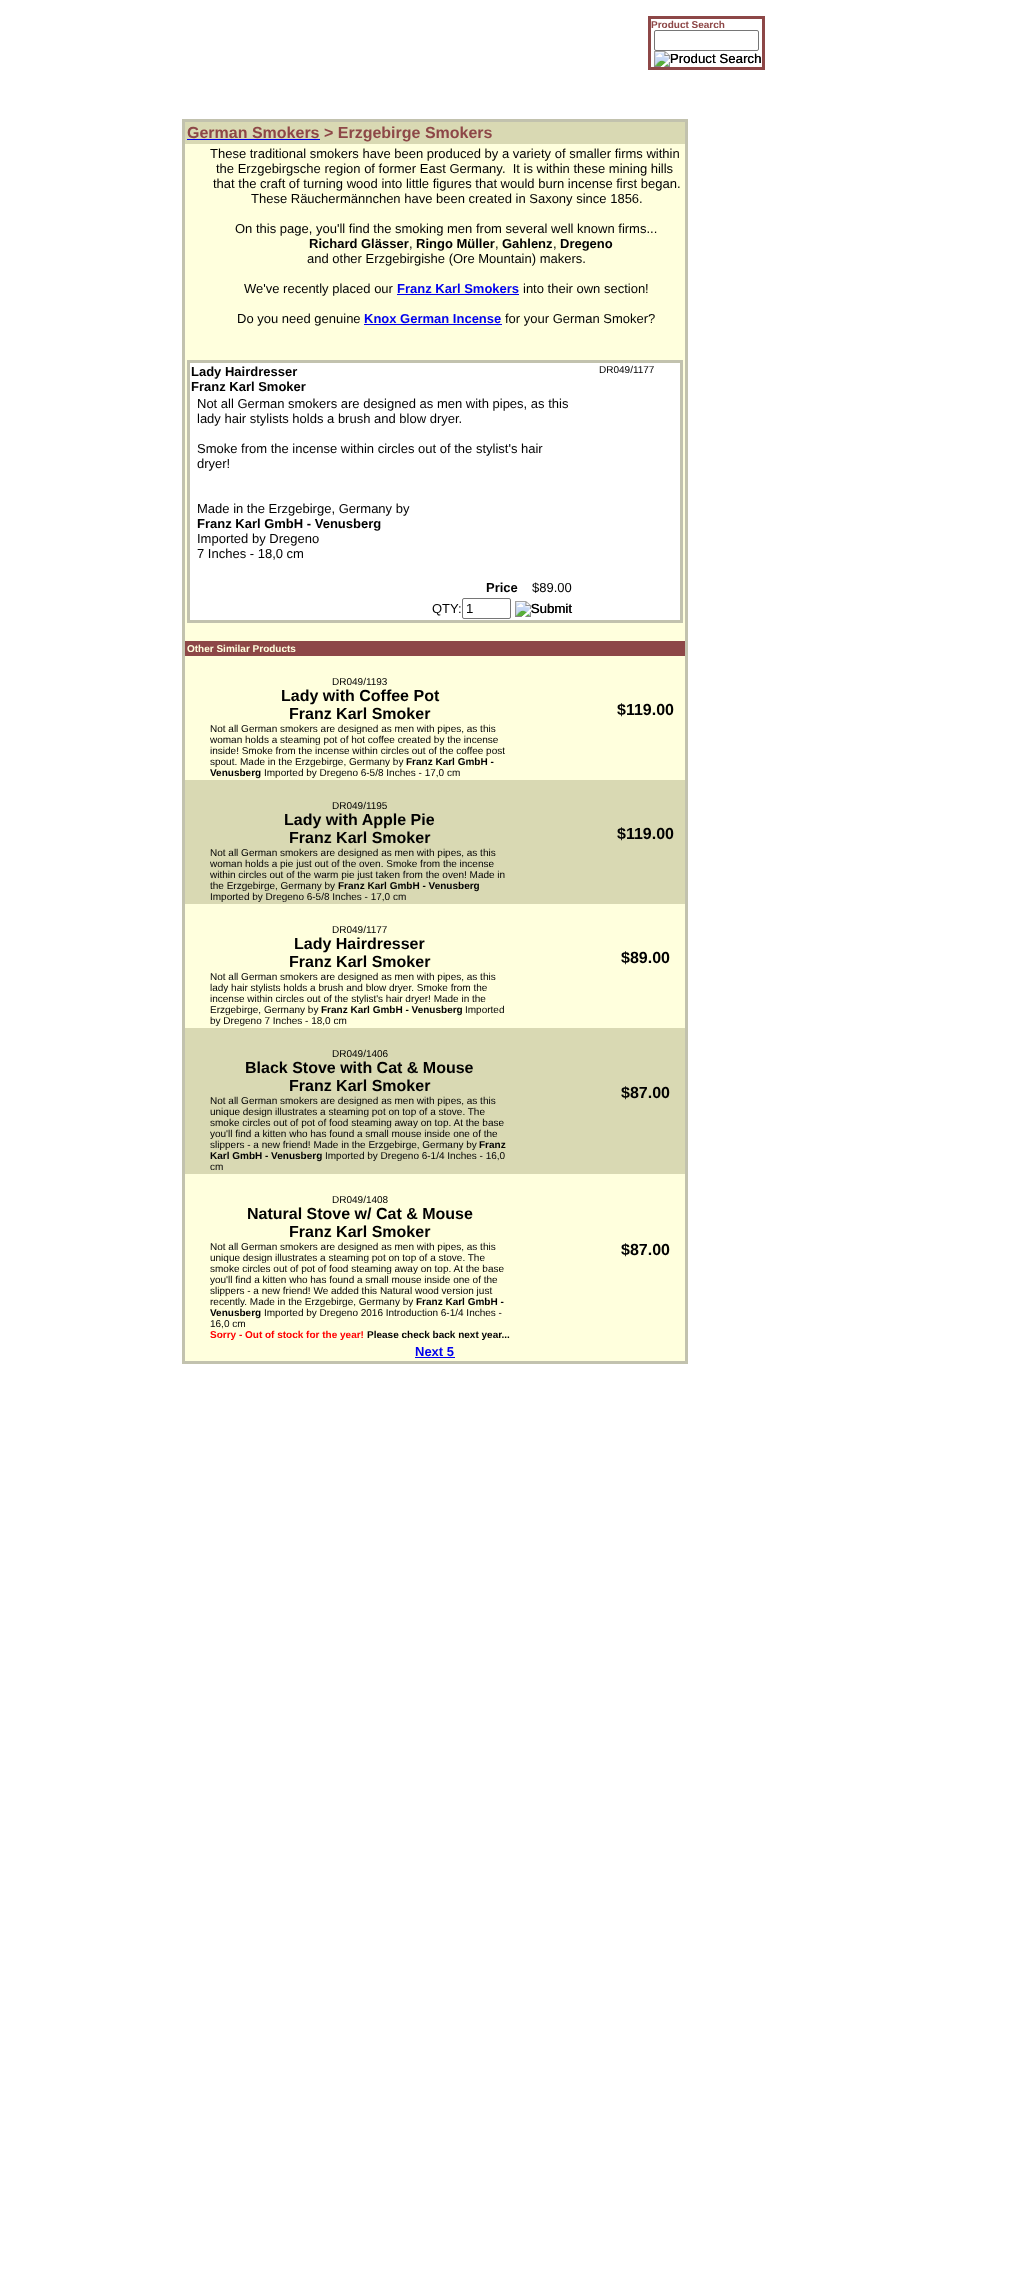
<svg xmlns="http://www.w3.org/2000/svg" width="1033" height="2282">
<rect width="100%" height="100%" fill="#fff"/>
<rect x="648" y="16" width="117" height="54" fill="#8d4747"/>
<rect x="651" y="19" width="111" height="48" fill="#fff"/>
<text x="651" y="28" style="font-family:Liberation Sans;font-size:10px;font-weight:bold;fill:#8d4747">Product Search</text>
<rect x="654.5" y="30.5" width="104" height="20" rx="1.5" fill="none" stroke="#767676"/>
<image x="654" y="51" width="107" height="16" href="media/1.png"/>
<text x="670" y="63" style="font-family:Liberation Sans;font-size:13.25px;fill:#000">Product Search</text>
<rect x="182" y="119" width="506" height="1245" fill="#c2c2ae"/>
<rect x="185" y="122" width="500" height="22" fill="#d9d9b3"/>
<rect x="187" y="139" width="133" height="1" fill="#00e"/>
<text x="187" y="138" style="font-family:Liberation Sans;font-size:16px;font-weight:bold;fill:#8d4747">German Smokers &gt; Erzgebirge Smokers</text>
<rect x="185" y="144" width="500" height="497" fill="#ffd"/>
<text x="210" y="158" style="font-family:Liberation Sans;font-size:13px;fill:#000">These traditional smokers have been produced by a variety of smaller firms within</text>
<text x="216" y="173" style="font-family:Liberation Sans;font-size:13px;fill:#000" xml:space="preserve">the Erzgebirgsche region of former East Germany.  It is within these mining hills</text>
<text x="213" y="188" style="font-family:Liberation Sans;font-size:13px;fill:#000">that the craft of turning wood into little figures that would burn incense first began.</text>
<text x="251" y="203" style="font-family:Liberation Sans;font-size:13px;fill:#000">These Räuchermännchen have been created in Saxony since 1856.</text>
<text x="235" y="233" style="font-family:Liberation Sans;font-size:13px;fill:#000">On this page, you'll find the smoking men from several well known firms...</text>
<text x="309" y="248" style="font-family:Liberation Sans;font-size:13px;font-weight:bold;fill:#000">Richard Glässer</text>
<text x="409" y="248" style="font-family:Liberation Sans;font-size:13px;fill:#000">,</text>
<text x="416" y="248" style="font-family:Liberation Sans;font-size:13px;font-weight:bold;fill:#000">Ringo Müller</text>
<text x="495" y="248" style="font-family:Liberation Sans;font-size:13px;fill:#000">,</text>
<text x="502" y="248" style="font-family:Liberation Sans;font-size:13px;font-weight:bold;fill:#000">Gahlenz</text>
<text x="553" y="248" style="font-family:Liberation Sans;font-size:13px;fill:#000">,</text>
<text x="560" y="248" style="font-family:Liberation Sans;font-size:13px;font-weight:bold;fill:#000">Dregeno</text>
<text x="307" y="263" style="font-family:Liberation Sans;font-size:13px;fill:#000">and other Erzgebirgishe (Ore Mountain) makers.</text>
<text x="244" y="293" style="font-family:Liberation Sans;font-size:13px;fill:#000">We've recently placed our</text>
<text x="397" y="293" style="font-family:Liberation Sans;font-size:13px;font-weight:bold;fill:#00e">Franz Karl Smokers</text>
<rect x="397" y="294" width="122" height="1" fill="#00e"/>
<text x="523" y="293" style="font-family:Liberation Sans;font-size:13px;fill:#000">into their own section!</text>
<text x="237" y="323" style="font-family:Liberation Sans;font-size:13px;fill:#000">Do you need genuine</text>
<text x="364" y="323" style="font-family:Liberation Sans;font-size:13px;font-weight:bold;fill:#00e">Knox German Incense</text>
<rect x="364" y="324" width="138" height="1" fill="#00e"/>
<text x="505" y="323" style="font-family:Liberation Sans;font-size:13px;fill:#000">for your German Smoker?</text>
<rect x="187" y="360" width="496" height="263" fill="#c2c2ae"/>
<rect x="190" y="363" width="490" height="257" fill="#fff"/>
<text x="191" y="376" style="font-family:Liberation Sans;font-size:13px;font-weight:bold;fill:#000">Lady Hairdresser</text>
<text x="191" y="391" style="font-family:Liberation Sans;font-size:13px;font-weight:bold;fill:#000">Franz Karl Smoker</text>
<text x="599" y="373" style="font-family:Liberation Sans;font-size:10px;fill:#000">DR049/1177</text>
<text x="197" y="408" style="font-family:Liberation Sans;font-size:13px;fill:#000">Not all German smokers are designed as men with pipes, as this</text>
<text x="197" y="423" style="font-family:Liberation Sans;font-size:13px;fill:#000">lady hair stylists holds a brush and blow dryer.</text>
<text x="197" y="453" style="font-family:Liberation Sans;font-size:13px;fill:#000">Smoke from the incense within circles out of the stylist's hair</text>
<text x="197" y="468" style="font-family:Liberation Sans;font-size:13px;fill:#000">dryer!</text>
<text x="197" y="513" style="font-family:Liberation Sans;font-size:13px;fill:#000">Made in the Erzgebirge, Germany by</text>
<text x="197" y="528" style="font-family:Liberation Sans;font-size:13px;font-weight:bold;fill:#000">Franz Karl GmbH - Venusberg</text>
<text x="197" y="543" style="font-family:Liberation Sans;font-size:13px;fill:#000">Imported by Dregeno</text>
<text x="197" y="558" style="font-family:Liberation Sans;font-size:13px;fill:#000">7 Inches - 18,0 cm</text>
<text x="486" y="592" style="font-family:Liberation Sans;font-size:13px;font-weight:bold;fill:#000">Price</text>
<text x="532" y="592" style="font-family:Liberation Sans;font-size:13px;fill:#000">$89.00</text>
<text x="432" y="613" style="font-family:Liberation Sans;font-size:13px;fill:#000">QTY:</text>
<rect x="462.5" y="598.5" width="48" height="20" rx="1.5" fill="none" stroke="#767676"/>
<text x="466" y="613" style="font-family:Liberation Sans;font-size:13.25px;fill:#000">1</text>
<image x="515" y="601" width="57" height="16" href="media/2.png"/>
<text x="531" y="613" style="font-family:Liberation Sans;font-size:13.25px;fill:#000">Submit</text>
<rect x="185" y="641" width="500" height="15" fill="#8d4747"/>
<text x="187" y="652" style="font-family:Liberation Sans;font-size:10px;font-weight:bold;fill:#ffd">Other Similar Products</text>
<rect x="185" y="656" width="500" height="124" fill="#ffd"/>
<text x="332" y="685" style="font-family:Liberation Sans;font-size:10px;fill:#000">DR049/1193</text>
<text x="281" y="701" style="font-family:Liberation Sans;font-size:16px;font-weight:bold;fill:#000">Lady with Coffee Pot</text>
<text x="289" y="719" style="font-family:Liberation Sans;font-size:16px;font-weight:bold;fill:#000">Franz Karl Smoker</text>
<text x="210" y="732" style="font-family:Liberation Sans;font-size:10px;fill:#000">Not all German smokers are designed as men with pipes, as this</text>
<text x="210" y="743" style="font-family:Liberation Sans;font-size:10px;fill:#000">woman holds a steaming pot of hot coffee created by the incense</text>
<text x="210" y="754" style="font-family:Liberation Sans;font-size:10px;fill:#000">inside! Smoke from the incense within circles out of the coffee post</text>
<text x="210" y="765" style="font-family:Liberation Sans;font-size:10px;fill:#000">spout. Made in the Erzgebirge, Germany by</text>
<text x="406" y="765" style="font-family:Liberation Sans;font-size:10px;font-weight:bold;fill:#000">Franz Karl GmbH -</text>
<text x="210" y="776" style="font-family:Liberation Sans;font-size:10px;font-weight:bold;fill:#000">Venusberg</text>
<text x="264" y="776" style="font-family:Liberation Sans;font-size:10px;fill:#000">Imported by Dregeno 6-5/8 Inches - 17,0 cm</text>
<text x="617" y="715" style="font-family:Liberation Sans;font-size:16px;font-weight:bold;fill:#000">$119.00</text>
<rect x="185" y="780" width="500" height="124" fill="#d9d9b3"/>
<text x="332" y="809" style="font-family:Liberation Sans;font-size:10px;fill:#000">DR049/1195</text>
<text x="284" y="825" style="font-family:Liberation Sans;font-size:16px;font-weight:bold;fill:#000">Lady with Apple Pie</text>
<text x="289" y="843" style="font-family:Liberation Sans;font-size:16px;font-weight:bold;fill:#000">Franz Karl Smoker</text>
<text x="210" y="856" style="font-family:Liberation Sans;font-size:10px;fill:#000">Not all German smokers are designed as men with pipes, as this</text>
<text x="210" y="867" style="font-family:Liberation Sans;font-size:10px;fill:#000">woman holds a pie just out of the oven. Smoke from the incense</text>
<text x="210" y="878" style="font-family:Liberation Sans;font-size:10px;fill:#000">within circles out of the warm pie just taken from the oven! Made in</text>
<text x="210" y="889" style="font-family:Liberation Sans;font-size:10px;fill:#000">the Erzgebirge, Germany by</text>
<text x="338" y="889" style="font-family:Liberation Sans;font-size:10px;font-weight:bold;fill:#000">Franz Karl GmbH - Venusberg</text>
<text x="210" y="900" style="font-family:Liberation Sans;font-size:10px;fill:#000">Imported by Dregeno 6-5/8 Inches - 17,0 cm</text>
<text x="617" y="839" style="font-family:Liberation Sans;font-size:16px;font-weight:bold;fill:#000">$119.00</text>
<rect x="185" y="904" width="500" height="124" fill="#ffd"/>
<text x="332" y="933" style="font-family:Liberation Sans;font-size:10px;fill:#000">DR049/1177</text>
<text x="294" y="949" style="font-family:Liberation Sans;font-size:16px;font-weight:bold;fill:#000">Lady Hairdresser</text>
<text x="289" y="967" style="font-family:Liberation Sans;font-size:16px;font-weight:bold;fill:#000">Franz Karl Smoker</text>
<text x="210" y="980" style="font-family:Liberation Sans;font-size:10px;fill:#000">Not all German smokers are designed as men with pipes, as this</text>
<text x="210" y="991" style="font-family:Liberation Sans;font-size:10px;fill:#000">lady hair stylists holds a brush and blow dryer. Smoke from the</text>
<text x="210" y="1002" style="font-family:Liberation Sans;font-size:10px;fill:#000">incense within circles out of the stylist's hair dryer! Made in the</text>
<text x="210" y="1013" style="font-family:Liberation Sans;font-size:10px;fill:#000">Erzgebirge, Germany by</text>
<text x="321" y="1013" style="font-family:Liberation Sans;font-size:10px;font-weight:bold;fill:#000">Franz Karl GmbH - Venusberg</text>
<text x="465" y="1013" style="font-family:Liberation Sans;font-size:10px;fill:#000">Imported</text>
<text x="210" y="1024" style="font-family:Liberation Sans;font-size:10px;fill:#000">by Dregeno 7 Inches - 18,0 cm</text>
<text x="621" y="963" style="font-family:Liberation Sans;font-size:16px;font-weight:bold;fill:#000">$89.00</text>
<rect x="185" y="1028" width="500" height="146" fill="#d9d9b3"/>
<text x="332" y="1057" style="font-family:Liberation Sans;font-size:10px;fill:#000">DR049/1406</text>
<text x="245" y="1073" style="font-family:Liberation Sans;font-size:16px;font-weight:bold;fill:#000">Black Stove with Cat &amp; Mouse</text>
<text x="289" y="1091" style="font-family:Liberation Sans;font-size:16px;font-weight:bold;fill:#000">Franz Karl Smoker</text>
<text x="210" y="1104" style="font-family:Liberation Sans;font-size:10px;fill:#000">Not all German smokers are designed as men with pipes, as this</text>
<text x="210" y="1115" style="font-family:Liberation Sans;font-size:10px;fill:#000">unique design illustrates a steaming pot on top of a stove. The</text>
<text x="210" y="1126" style="font-family:Liberation Sans;font-size:10px;fill:#000">smoke circles out of pot of food steaming away on top. At the base</text>
<text x="210" y="1137" style="font-family:Liberation Sans;font-size:10px;fill:#000">you'll find a kitten who has found a small mouse inside one of the</text>
<text x="210" y="1148" style="font-family:Liberation Sans;font-size:10px;fill:#000">slippers - a new friend! Made in the Erzgebirge, Germany by</text>
<text x="479" y="1148" style="font-family:Liberation Sans;font-size:10px;font-weight:bold;fill:#000">Franz</text>
<text x="210" y="1159" style="font-family:Liberation Sans;font-size:10px;font-weight:bold;fill:#000">Karl GmbH - Venusberg</text>
<text x="325" y="1159" style="font-family:Liberation Sans;font-size:10px;fill:#000">Imported by Dregeno 6-1/4 Inches - 16,0</text>
<text x="210" y="1170" style="font-family:Liberation Sans;font-size:10px;fill:#000">cm</text>
<text x="621" y="1098" style="font-family:Liberation Sans;font-size:16px;font-weight:bold;fill:#000">$87.00</text>
<rect x="185" y="1174" width="500" height="187" fill="#ffd"/>
<text x="332" y="1203" style="font-family:Liberation Sans;font-size:10px;fill:#000">DR049/1408</text>
<text x="247" y="1219" style="font-family:Liberation Sans;font-size:16px;font-weight:bold;fill:#000">Natural Stove w/ Cat &amp; Mouse</text>
<text x="289" y="1237" style="font-family:Liberation Sans;font-size:16px;font-weight:bold;fill:#000">Franz Karl Smoker</text>
<text x="210" y="1250" style="font-family:Liberation Sans;font-size:10px;fill:#000">Not all German smokers are designed as men with pipes, as this</text>
<text x="210" y="1261" style="font-family:Liberation Sans;font-size:10px;fill:#000">unique design illustrates a steaming pot on top of a stove. The</text>
<text x="210" y="1272" style="font-family:Liberation Sans;font-size:10px;fill:#000">smoke circles out of pot of food steaming away on top. At the base</text>
<text x="210" y="1283" style="font-family:Liberation Sans;font-size:10px;fill:#000">you'll find a kitten who has found a small mouse inside one of the</text>
<text x="210" y="1294" style="font-family:Liberation Sans;font-size:10px;fill:#000">slippers - a new friend! We added this Natural wood version just</text>
<text x="210" y="1305" style="font-family:Liberation Sans;font-size:10px;fill:#000">recently. Made in the Erzgebirge, Germany by</text>
<text x="416" y="1305" style="font-family:Liberation Sans;font-size:10px;font-weight:bold;fill:#000">Franz Karl GmbH -</text>
<text x="210" y="1316" style="font-family:Liberation Sans;font-size:10px;font-weight:bold;fill:#000">Venusberg</text>
<text x="264" y="1316" style="font-family:Liberation Sans;font-size:10px;fill:#000">Imported by Dregeno 2016 Introduction 6-1/4 Inches -</text>
<text x="210" y="1327" style="font-family:Liberation Sans;font-size:10px;fill:#000">16,0 cm</text>
<text x="210" y="1338" style="font-family:Liberation Sans;font-size:10px;font-weight:bold;fill:#f00">Sorry - Out of stock for the year!</text>
<text x="367" y="1338" style="font-family:Liberation Sans;font-size:10px;font-weight:bold;fill:#000">Please check back next year...</text>
<text x="621" y="1255" style="font-family:Liberation Sans;font-size:16px;font-weight:bold;fill:#000">$87.00</text>
<text x="415" y="1356" style="font-family:Liberation Sans;font-size:13px;font-weight:bold;fill:#00e">Next 5</text>
<rect x="415" y="1357" width="40" height="1" fill="#00e"/>
</svg>
